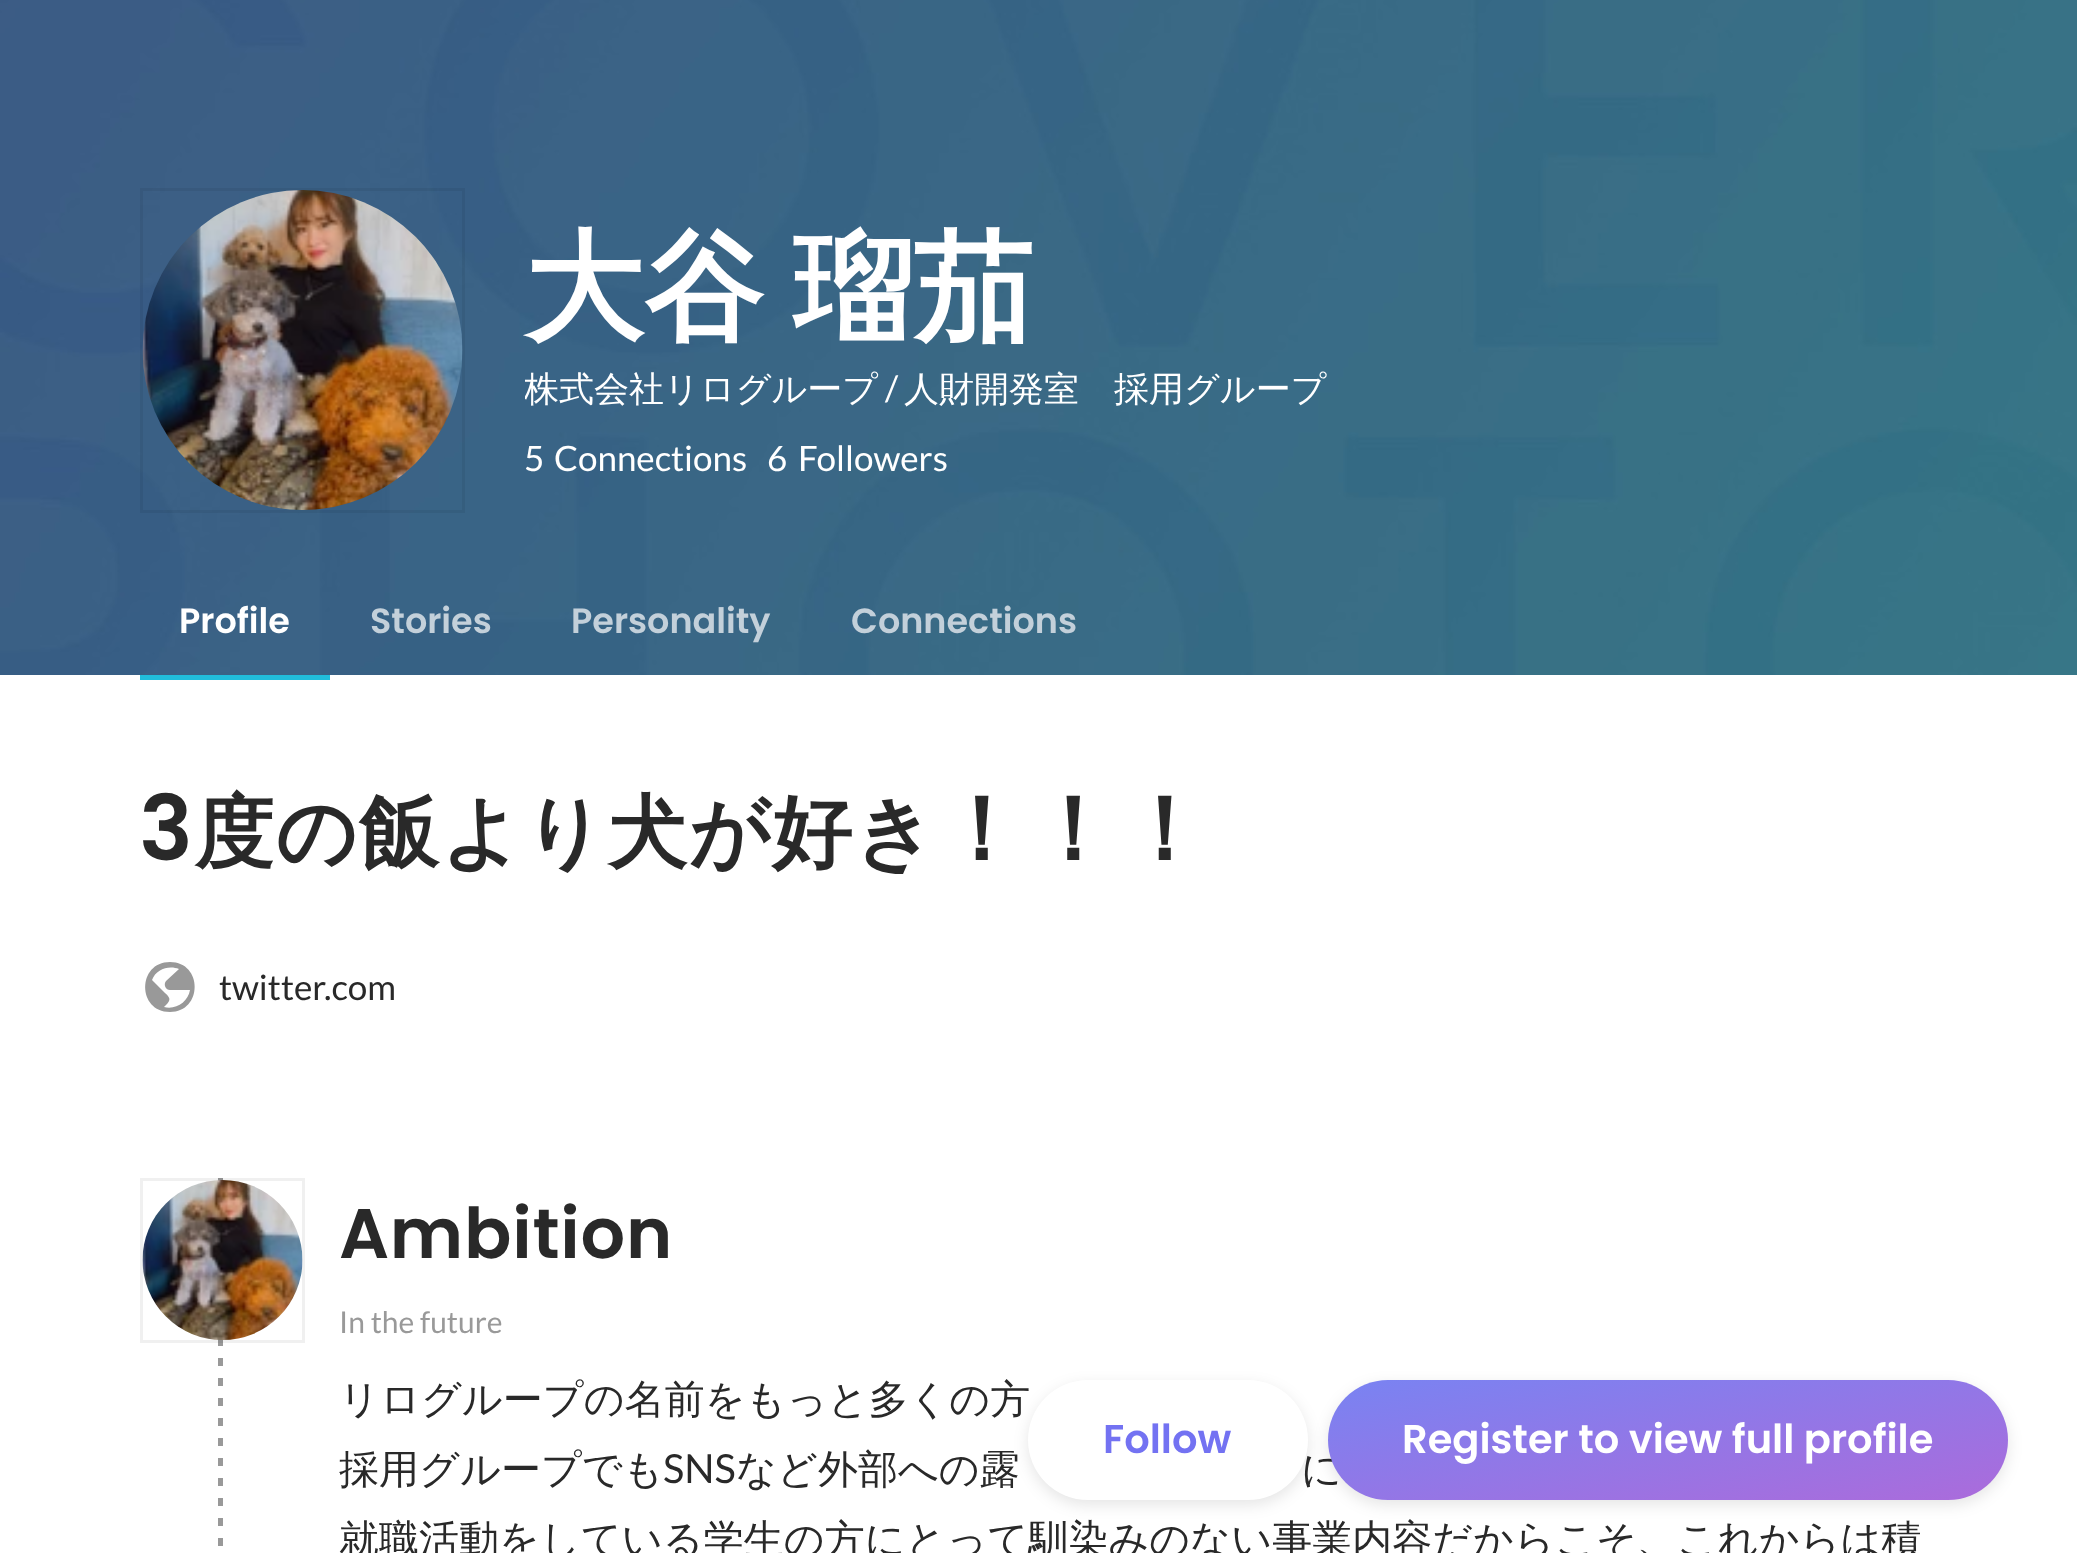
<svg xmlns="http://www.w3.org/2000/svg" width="2077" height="1553">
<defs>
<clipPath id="clip1"><rect x="525" y="360" width="803" height="60"/></clipPath>
<linearGradient id="g1" gradientUnits="userSpaceOnUse" x1="1647" y1="1324" x2="1688" y2="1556"><stop offset="0" stop-color="#7983f2"/><stop offset="1" stop-color="#ab6bdb"/></linearGradient>
</defs>
<rect width="100%" height="100%" fill="#fff"/>
<image x="0" y="0" width="2077" height="675" href="media/1.png"/>
<rect x="141.5" y="189.5" width="322" height="322" fill="none" stroke="#0000000f" stroke-width="3"/>
<image x="142" y="190" width="321" height="320" href="media/2.png"/>
<text x="524" y="329" word-spacing="-7" style="font-family:WenQuanYi Zen Hei;font-size:120px;font-weight:bold;fill:#fff">大谷 瑠茄</text>
<g clip-path="url(#clip1)">
<text x="524" y="401" style="font-family:WenQuanYi Zen Hei;font-size:35px;font-weight:500;fill:#fff">株式会社リログループ</text>
</g>
<text x="885" y="401" style="font-family:Lato;font-size:35px;fill:#fff">/</text>
<text x="904" y="401" style="font-family:WenQuanYi Zen Hei;font-size:35px;font-weight:500;fill:#fff">人財開発室　採用グループ</text>
<text x="524" y="471" style="font-family:Lato;font-size:35px;fill:#fff">5</text>
<text x="554" y="471" style="font-family:Lato;font-size:35px;fill:#fff">Connections</text>
<text x="767" y="471" style="font-family:Lato;font-size:35px;fill:#fff">6</text>
<text x="798" y="471" style="font-family:Lato;font-size:35px;fill:#fff">Followers</text>
<rect x="140" y="675" width="190" height="5" fill="#21bddb"/>
<text x="179" y="633" style="font-family:Poppins;font-size:35px;font-weight:600;fill:#fff">Profile</text>
<text x="370" y="633" style="font-family:Poppins;font-size:35px;font-weight:600;fill:#c3d0da">Stories</text>
<text x="571" y="633" style="font-family:Poppins;font-size:35px;font-weight:600;fill:#c3d0da">Personality</text>
<text x="851" y="633" style="font-family:Poppins;font-size:35px;font-weight:600;fill:#c3d0da">Connections</text>
<rect x="1028" y="1385" width="280" height="120" rx="60" fill="#0000001a" filter="blur(7.5px)"/>
<text x="339" y="1413" style="font-family:WenQuanYi Zen Hei;font-size:40px;font-weight:500;fill:#292929">リログループの名前をもっと多くの方</text>
<text x="1301" y="1483" style="font-family:WenQuanYi Zen Hei;font-size:40px;font-weight:500;fill:#292929">に</text>
<rect x="1028" y="1380" width="280" height="120" rx="60" fill="#fff"/>
<text x="1103" y="1453" style="font-family:Poppins;font-size:40px;font-weight:600;fill:#7372f2">Follow</text>
<rect x="1328" y="1385" width="680" height="120" rx="60" fill="#0000001a" filter="blur(7.5px)"/>
<rect x="1328" y="1380" width="680" height="120" rx="60" fill="url(#g1)"/>
<text x="1402" y="1453" style="font-family:Poppins;font-size:40px;font-weight:600;fill:#fff">Register to view full profile</text>
<text x="139" y="860" style="font-family:Poppins;font-size:90px;font-weight:600;letter-spacing:1.5px;fill:#292929">3</text>
<text x="194" y="860" style="font-family:WenQuanYi Zen Hei;font-size:80px;font-weight:bold;letter-spacing:1.5px;fill:#292929">度の飯より犬が好き</text>
<text x="936" y="860" style="font-family:WenQuanYi Zen Hei;font-size:90px;font-weight:bold;letter-spacing:1.5px;fill:#292929">！！！</text>
<path d="M170 962c33 0 33 50 0 50c-33 0-33-50 0-50zm-18 18l13 13c7 6 5 8-1 14c12 3 24-5 26-17h-20c-4 0-7-5-4-9l13-12c-10-4-23 0-27 11z" fill="#999" fill-rule="evenodd"/>
<text x="219" y="1000" style="font-family:Lato;font-size:35px;fill:#292929">twitter.com</text>
<image x="218" y="1178" width="5" height="368" href="media/3.png"/>
<rect x="141.5" y="1179.5" width="162" height="162" fill="none" stroke="#0000000f" stroke-width="3"/>
<image x="142" y="1180" width="161" height="160" href="media/4.png"/>
<text x="339" y="1258" style="font-family:Poppins;font-size:70px;font-weight:600;letter-spacing:0.75px;fill:#292929">Ambition</text>
<text x="339" y="1333" style="font-family:Lato;font-size:30px;fill:#999">In the future</text>
<text x="339" y="1483" style="font-family:WenQuanYi Zen Hei;font-size:40px;font-weight:500;fill:#292929">採用グループでも</text>
<text x="663" y="1483" style="font-family:Lato;font-size:40px;fill:#292929">SNS</text>
<text x="736" y="1483" style="font-family:WenQuanYi Zen Hei;font-size:40px;font-weight:500;fill:#292929">など外部への露</text>
<text x="339" y="1553" style="font-family:WenQuanYi Zen Hei;font-size:40px;font-weight:500;fill:#292929">就職活動をしている学生の方にとって馴染みのない事業内容だからこそ、これからは積</text>
</svg>
